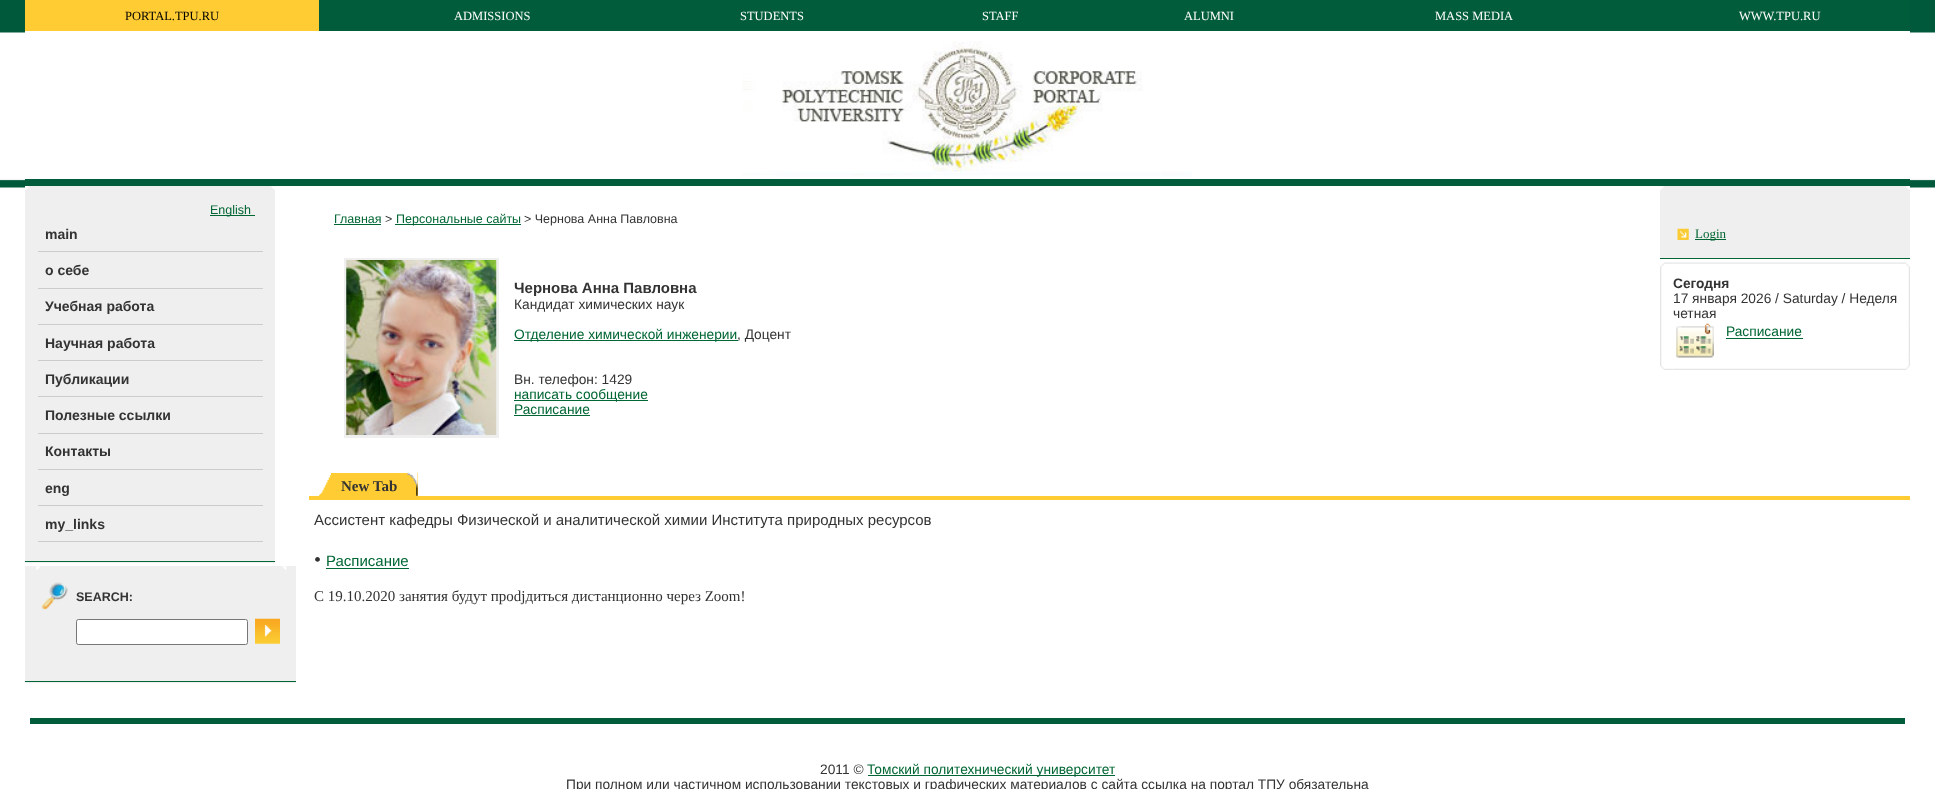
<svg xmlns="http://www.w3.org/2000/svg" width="1935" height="789">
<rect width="100%" height="100%" fill="#fff"/>
<image x="0" y="0" width="25" height="188" href="media/1.png"/>
<rect x="319" width="1591" height="31" fill="#005c3a"/>
<rect x="25" width="294" height="31" fill="#fc3"/>
<text x="125" y="20" style="font-family:Liberation Serif;font-size:12.5px;fill:#000">PORTAL.TPU.RU</text>
<text x="454" y="20" style="font-family:Liberation Serif;font-size:12.5px;fill:#fff">ADMISSIONS</text>
<text x="740" y="20" style="font-family:Liberation Serif;font-size:12.5px;fill:#fff">STUDENTS</text>
<text x="982" y="20" style="font-family:Liberation Serif;font-size:12.5px;fill:#fff">STAFF</text>
<text x="1184" y="20" style="font-family:Liberation Serif;font-size:12.5px;fill:#fff">ALUMNI</text>
<text x="1435" y="20" style="font-family:Liberation Serif;font-size:12.5px;fill:#fff">MASS MEDIA</text>
<text x="1739" y="20" style="font-family:Liberation Serif;font-size:12.5px;fill:#fff">WWW.TPU.RU</text>
<image x="742" y="41" width="450" height="136" href="media/2.png"/>
<rect x="25" y="179" width="1885" height="7" fill="#005c3a"/>
<rect x="25" y="186" width="250" height="377" fill="#efefef"/>
<image x="25" y="186" width="250" height="4" href="media/3.png"/>
<rect x="25" y="561" width="250" height="1" fill="#063"/>
<rect x="210" y="215" width="45" height="1" fill="#063"/>
<text x="210" y="214" style="font-family:Liberation Sans;font-size:12.5px;fill:#063">English</text>
<text x="45" y="239" style="font-family:Liberation Sans;font-size:14px;font-weight:bold;fill:#333">main</text>
<rect x="38" y="251" width="225" height="1" fill="#ccc"/>
<text x="45" y="275" style="font-family:Liberation Sans;font-size:14px;font-weight:bold;fill:#333">о себе</text>
<rect x="38" y="288" width="225" height="1" fill="#ccc"/>
<text x="45" y="311" style="font-family:Liberation Sans;font-size:14px;font-weight:bold;fill:#333">Учебная работа</text>
<rect x="38" y="324" width="225" height="1" fill="#ccc"/>
<text x="45" y="348" style="font-family:Liberation Sans;font-size:14px;font-weight:bold;fill:#333">Научная работа</text>
<rect x="38" y="360" width="225" height="1" fill="#ccc"/>
<text x="45" y="384" style="font-family:Liberation Sans;font-size:14px;font-weight:bold;fill:#333">Публикации</text>
<rect x="38" y="396" width="225" height="1" fill="#ccc"/>
<text x="45" y="420" style="font-family:Liberation Sans;font-size:14px;font-weight:bold;fill:#333">Полезные ссылки</text>
<rect x="38" y="433" width="225" height="1" fill="#ccc"/>
<text x="45" y="456" style="font-family:Liberation Sans;font-size:14px;font-weight:bold;fill:#333">Контакты</text>
<rect x="38" y="469" width="225" height="1" fill="#ccc"/>
<text x="45" y="493" style="font-family:Liberation Sans;font-size:14px;font-weight:bold;fill:#333">eng</text>
<rect x="38" y="505" width="225" height="1" fill="#ccc"/>
<text x="45" y="529" style="font-family:Liberation Sans;font-size:14px;font-weight:bold;fill:#333">my_links</text>
<rect x="38" y="541" width="225" height="1" fill="#ccc"/>
<rect x="25" y="566" width="271" height="117" fill="#efefef"/>
<image x="36" y="566" width="251" height="4" href="media/4.png"/>
<rect x="25" y="681" width="271" height="1" fill="#063"/>
<image x="41" y="582" width="27" height="28" href="media/5.png"/>
<text x="76" y="601" style="font-family:Liberation Sans;font-size:12.5px;font-weight:bold;fill:#333">SEARCH:</text>
<rect x="76.5" y="619.5" width="171" height="25" rx="2" fill="#fff" stroke="#767676"/>
<image x="255" y="618" width="25" height="26" href="media/6.png"/>
<text x="334" y="223" style="font-family:Liberation Sans;font-size:12.5px;fill:#063">Главная</text>
<rect x="334" y="224" width="47" height="1" fill="#063"/>
<text x="385" y="223" style="font-family:Liberation Sans;font-size:12.5px;fill:#333">&gt;</text>
<rect x="395" y="224" width="126" height="1" fill="#063"/>
<text x="396" y="223" style="font-family:Liberation Sans;font-size:12.5px;fill:#063">Персональные сайты</text>
<text x="524" y="223" style="font-family:Liberation Sans;font-size:12.5px;fill:#333">&gt; Чернова Анна Павловна</text>
<rect x="345.5" y="259.5" width="152" height="177" fill="none" stroke="#efefef" stroke-width="3"/>
<image x="346" y="260" width="151" height="175" href="media/7.png"/>
<text x="514" y="293" style="font-family:Liberation Sans;font-size:15px;font-weight:bold;fill:#333">Чернова Анна Павловна</text>
<text x="514" y="309" style="font-family:Liberation Sans;font-size:13.75px;fill:#333">Кандидат химических наук</text>
<rect x="514" y="340" width="224" height="1" fill="#063"/>
<text x="514" y="339" style="font-family:Liberation Sans;font-size:13.75px;fill:#063">Отделение химической инженерии</text>
<text x="737" y="339" style="font-family:Liberation Sans;font-size:13.75px;fill:#333">, Доцент</text>
<text x="514" y="384" style="font-family:Liberation Sans;font-size:13.75px;fill:#333">Вн. телефон: 1429</text>
<rect x="514" y="400" width="134" height="1" fill="#063"/>
<text x="514" y="399" style="font-family:Liberation Sans;font-size:13.75px;fill:#063">написать сообщение</text>
<text x="514" y="414" style="font-family:Liberation Sans;font-size:13.75px;fill:#063">Расписание</text>
<rect x="514" y="415" width="76" height="1" fill="#063"/>
<rect x="1660" y="186" width="250" height="72" fill="#efefef"/>
<image x="1660" y="186" width="250" height="4" href="media/8.png"/>
<rect x="1660" y="258" width="250" height="1" fill="#063"/>
<image x="1677" y="228" width="12" height="12" href="media/9.png"/>
<rect x="1695" y="239" width="31" height="1" fill="#063"/>
<text x="1695" y="238" style="font-family:Liberation Serif;font-size:13px;fill:#063">Login</text>
<image x="1672" y="262" width="226" height="2" href="media/11.png"/>
<image x="1660" y="262" width="13" height="13" href="media/10.png"/>
<image x="1897" y="262" width="13" height="13" href="media/12.png"/>
<image x="1660" y="275" width="2" height="49" href="media/13.png"/>
<text x="1673" y="288" style="font-family:Liberation Sans;font-size:13.75px;font-weight:bold;fill:#333">Сегодня</text>
<text x="1673" y="303" style="font-family:Liberation Sans;font-size:13.75px;fill:#333">17 января 2026 / Saturday / Неделя</text>
<text x="1673" y="318" style="font-family:Liberation Sans;font-size:13.75px;fill:#333">четная</text>
<image x="1908" y="275" width="2" height="49" href="media/14.png"/>
<image x="1660" y="324" width="2" height="34" href="media/15.png"/>
<image x="1676" y="323" width="38" height="35" href="media/16.png"/>
<text x="1726" y="336" style="font-family:Liberation Sans;font-size:13.75px;fill:#063">Расписание</text>
<rect x="1726" y="338" width="77" height="1" fill="#063"/>
<image x="1908" y="324" width="2" height="34" href="media/17.png"/>
<image x="1672" y="368" width="226" height="2" href="media/19.png"/>
<image x="1660" y="357" width="13" height="13" href="media/18.png"/>
<image x="1897" y="357" width="13" height="13" href="media/20.png"/>
<rect x="319" y="474" width="12" height="22" fill="#fc3"/>
<image x="319" y="473" width="12" height="23" href="media/21.png"/>
<rect x="331" y="473" width="87" height="23" fill="#fc3"/>
<text x="341" y="491" style="font-family:Liberation Serif;font-size:15px;font-weight:bold;fill:#333">New Tab</text>
<image x="407" y="472" width="11" height="24" href="media/22.png"/>
<rect x="309" y="496" width="1601" height="4" fill="#fc3"/>
<text x="314" y="525" style="font-family:Liberation Sans;font-size:15px;fill:#333">Ассистент кафедры Физической и аналитической химии Института природных ресурсов</text>
<text x="314" y="566" style="font-family:Liberation Serif;font-size:20px;fill:#333">•</text>
<text x="326" y="566" style="font-family:Liberation Sans;font-size:15px;fill:#063">Расписание</text>
<rect x="326" y="568" width="83" height="1" fill="#063"/>
<text x="314" y="601" style="font-family:Liberation Serif;font-size:15px;fill:#333">С 19.10.2020 занятия будут проdjдиться дистанционно через Zoom!</text>
<rect x="30" y="718" width="1875" height="6" fill="#005c3a"/>
<text x="820" y="774" style="font-family:Liberation Sans;font-size:13.75px;fill:#333">2011 ©</text>
<rect x="868" y="775" width="247" height="1" fill="#063"/>
<text x="867" y="774" style="font-family:Liberation Sans;font-size:13.75px;fill:#063">Томский политехнический университет</text>
<text x="566" y="789" style="font-family:Liberation Sans;font-size:13.75px;fill:#333">При полном или частичном использовании текстовых и графических материалов с сайта ссылка на портал ТПУ обязательна</text>
<image x="1910" y="0" width="25" height="188" href="media/1.png"/>
</svg>
